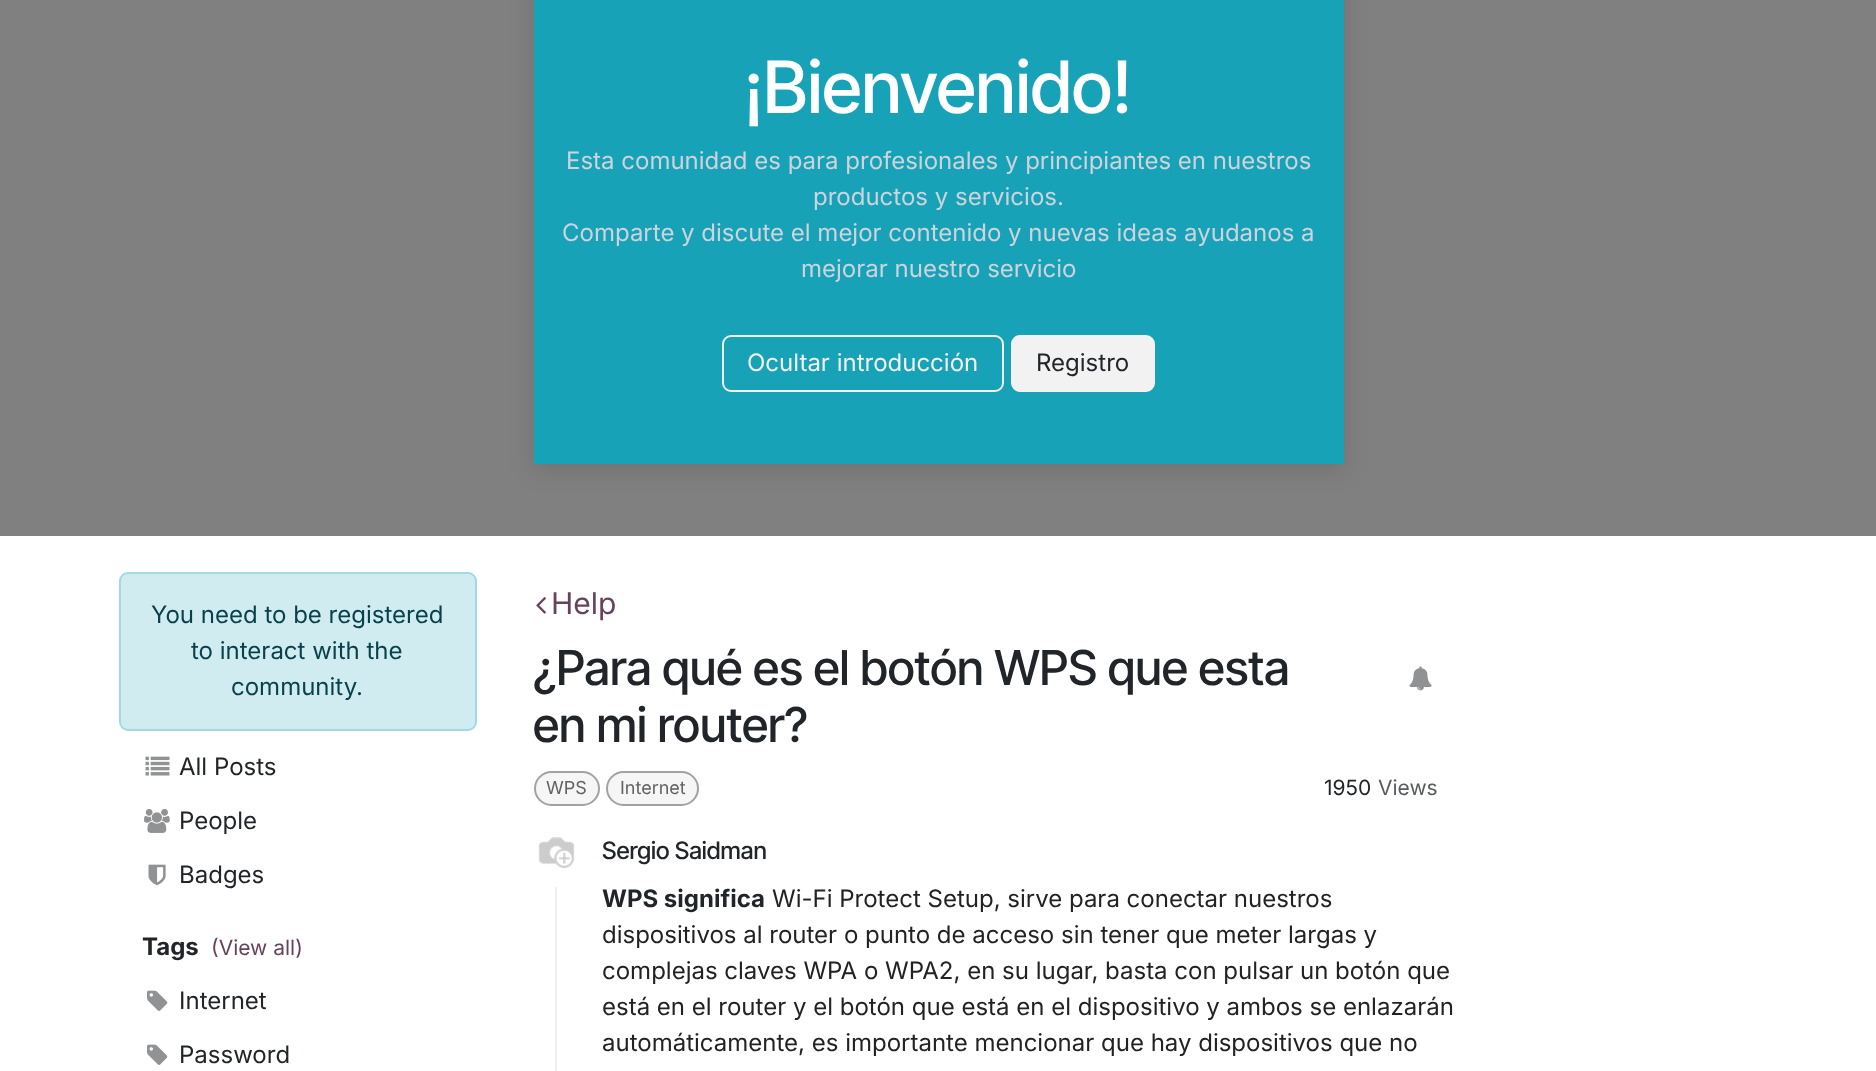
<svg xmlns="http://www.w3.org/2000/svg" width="1876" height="1071">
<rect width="100%" height="100%" fill="#fff"/>
<rect width="1876" height="536" fill="#808080"/>
<rect x="534" y="-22" width="810" height="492" fill="#0000001f" filter="blur(12px)"/>
<rect x="534" width="810" height="464" fill="#17a2b8"/>
<text x="744" y="113" style="font-family:Inter Tight;font-size:72px;font-weight:500;fill:#fff">¡Bienvenido!</text>
<text x="566" y="169" style="font-family:Inter;font-size:24px;fill:#ced4da">Esta comunidad es para profesionales y principiantes en nuestros</text>
<text x="813" y="205" style="font-family:Inter;font-size:24px;fill:#ced4da">productos y servicios.</text>
<text x="562" y="241" style="font-family:Inter;font-size:24px;fill:#ced4da">Comparte y discute el mejor contenido y nuevas ideas ayudanos a</text>
<text x="801" y="277" style="font-family:Inter;font-size:24px;fill:#ced4da">mejorar nuestro servicio</text>
<rect x="723" y="336" width="280" height="55" rx="8" fill="none" stroke="#f3f2f2" stroke-width="2"/>
<text x="747" y="371" style="font-family:Inter;font-size:24px;fill:#f3f2f2">Ocultar introducción</text>
<rect x="1012" y="336" width="142" height="55" rx="8" fill="#f3f2f2" stroke="#f3f2f2" stroke-width="2"/>
<text x="1036" y="371" style="font-family:Inter;font-size:24px;fill:#212529">Registro</text>
<rect x="120" y="573" width="356" height="157" rx="8" fill="#d1ecf1" stroke="#a2dae3" stroke-width="2"/>
<text x="151" y="623" style="font-family:Inter;font-size:24px;fill:#09414a">You need to be registered</text>
<text x="191" y="659" style="font-family:Inter;font-size:24px;fill:#09414a">to interact with the</text>
<text x="231" y="695" style="font-family:Inter;font-size:24px;fill:#09414a">community.</text>
<image x="145" y="756" width="25" height="20" href="media/1.png"/>
<text x="179" y="775" style="font-family:Inter;font-size:24px;fill:#212529">All Posts</text>
<image x="144" y="809" width="26" height="24" href="media/2.png"/>
<text x="179" y="829" style="font-family:Inter;font-size:24px;fill:#212529">People</text>
<image x="148" y="864" width="18" height="22" href="media/3.png"/>
<text x="179" y="883" style="font-family:Inter;font-size:24px;fill:#212529">Badges</text>
<text x="142" y="955" style="font-family:Inter;font-size:24px;font-weight:bold;fill:#212529">Tags</text>
<text x="211" y="955" style="font-family:Inter;font-size:21px;fill:#65435c">(View all)</text>
<image x="147" y="990" width="21" height="21" href="media/4.png"/>
<text x="179" y="1009" style="font-family:Inter;font-size:24px;fill:#212529">Internet</text>
<image x="147" y="1044" width="21" height="21" href="media/4.png"/>
<text x="179" y="1063" style="font-family:Inter;font-size:24px;fill:#212529">Password</text>
<image x="536" y="597" width="10" height="17" href="media/5.png"/>
<text x="551" y="614" style="font-family:Inter;font-size:30px;fill:#65435c">Help</text>
<text x="533" y="685" style="font-family:Inter Tight;font-size:48px;font-weight:500;fill:#212529">¿Para qué es el botón WPS que esta</text>
<text x="533" y="742" style="font-family:Inter Tight;font-size:48px;font-weight:500;fill:#212529">en mi router?</text>
<image x="1409" y="666" width="23" height="25" href="media/6.png"/>
<rect x="535" y="772" width="64" height="33" rx="16.5" fill="#f6f6f6" stroke="#a2a2a2" stroke-width="2"/>
<text x="546" y="794" style="font-family:Inter;font-size:18px;fill:#626262">WPS</text>
<rect x="607" y="772" width="91" height="33" rx="16.5" fill="#f6f6f6" stroke="#a2a2a2" stroke-width="2"/>
<text x="620" y="794" style="font-family:Inter;font-size:18px;fill:#626262">Internet</text>
<text x="1324" y="795" style="font-family:Inter;font-size:21px;fill:#212529">1950</text>
<text x="1378" y="795" style="font-family:Inter;font-size:21px;fill:#595c5f">Views</text>
<image x="538" y="837" width="37" height="31" href="media/7.png"/>
<rect x="555" y="887" width="2" height="184" fill="#eeefef"/>
<text x="602" y="859" style="font-family:Inter Tight;font-size:24px;font-weight:500;fill:#212529">Sergio Saidman</text>
<text x="602" y="907" style="font-family:Inter;font-size:24px;font-weight:bold;fill:#212529">WPS significa</text>
<text x="772" y="907" style="font-family:Inter;font-size:24px;fill:#222">Wi-Fi Protect Setup, sirve para conectar nuestros</text>
<text x="602" y="943" style="font-family:Inter;font-size:24px;fill:#222">dispositivos al router o punto de acceso sin tener que meter largas y</text>
<text x="602" y="979" style="font-family:Inter;font-size:24px;fill:#222">complejas claves WPA o WPA2, en su lugar, basta con pulsar un botón que</text>
<text x="602" y="1015" style="font-family:Inter;font-size:24px;fill:#222">está en el router y el botón que está en el dispositivo y ambos se enlazarán</text>
<text x="602" y="1051" style="font-family:Inter;font-size:24px;fill:#222">automáticamente, es importante mencionar que hay dispositivos que no</text>
</svg>
